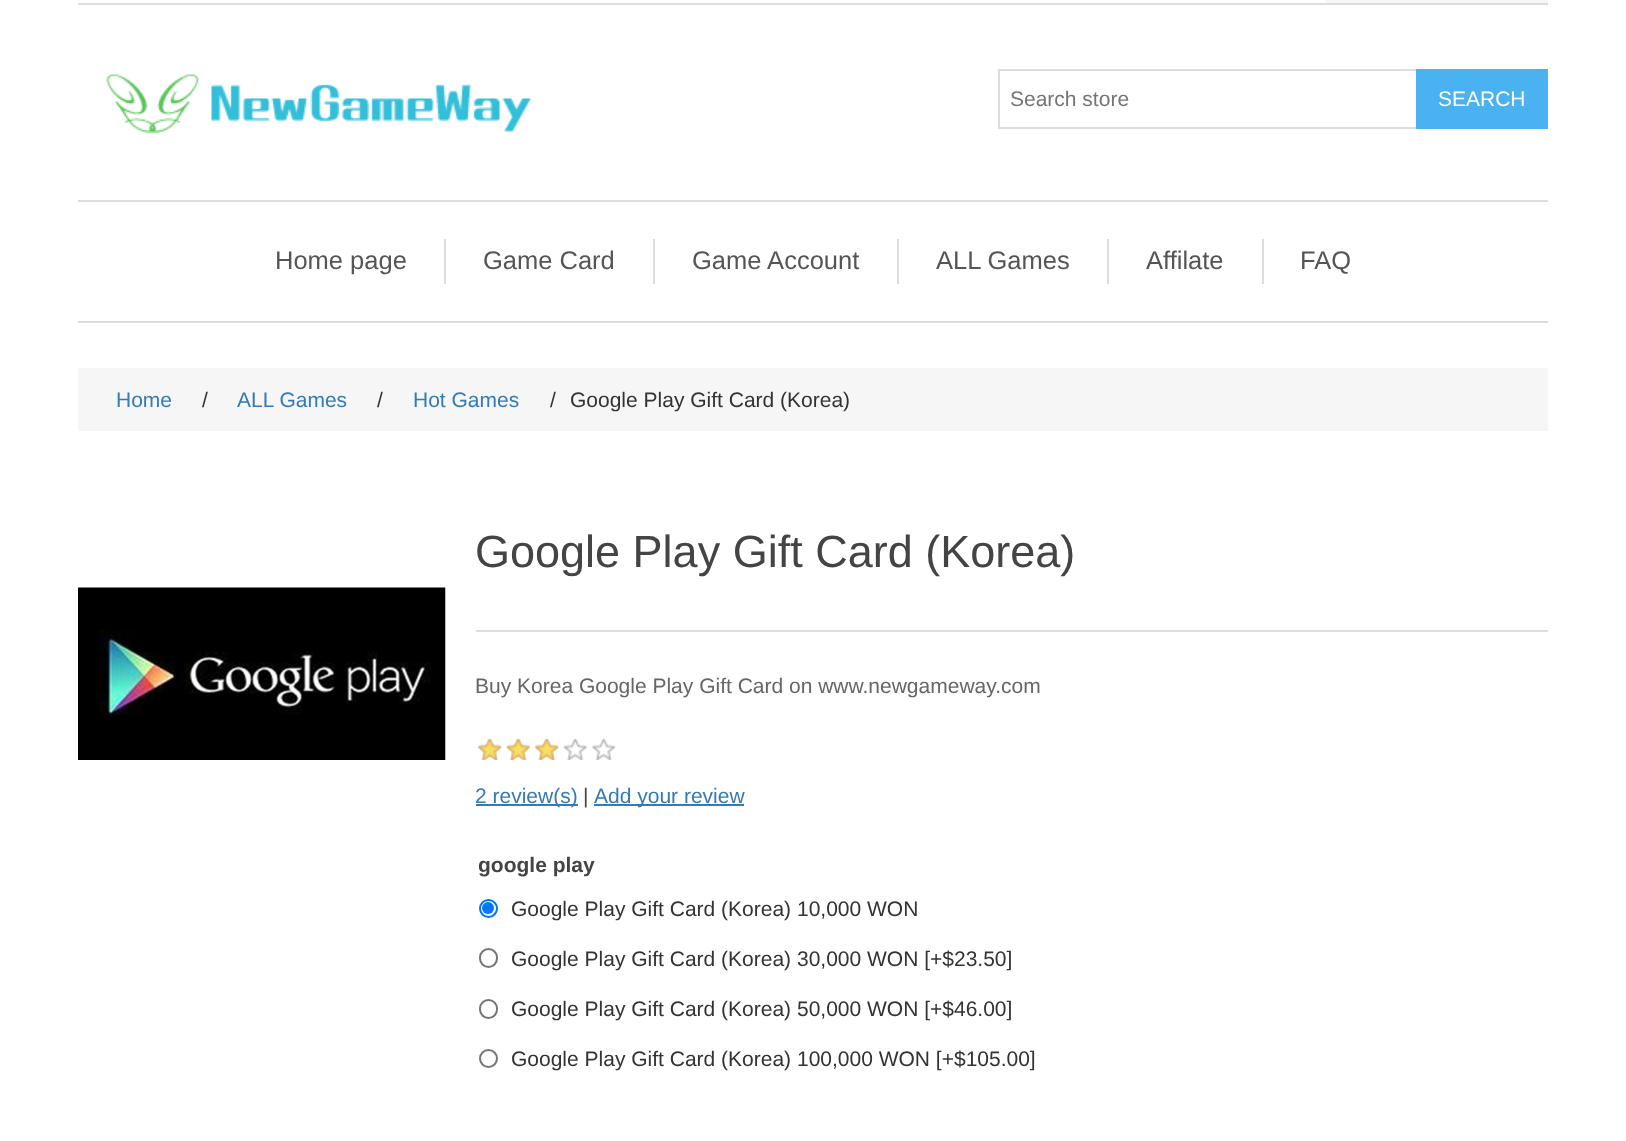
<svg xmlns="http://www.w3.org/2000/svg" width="1626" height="1141">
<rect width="100%" height="100%" fill="#fff"/>
<rect x="78" y="3" width="1470" height="2" fill="#ddd"/>
<rect x="1326" width="222" height="3" fill="#f6f6f6"/>
<image x="106" y="74" width="426" height="60" href="media/1.png"/>
<rect x="999" y="70" width="418" height="58" fill="none" stroke="#ddd" stroke-width="2"/>
<text x="1010" y="106" style="font-family:Liberation Sans;font-size:21px;fill:#757575">Search store</text>
<rect x="1416" y="69" width="132" height="60" fill="#4ab2f1"/>
<text x="1438" y="106" style="font-family:Liberation Sans;font-size:21px;fill:#fff">SEARCH</text>
<rect x="78" y="200" width="1470" height="2" fill="#ddd"/>
<rect x="78" y="321" width="1470" height="2" fill="#ddd"/>
<text x="275" y="269" style="font-family:Liberation Sans;font-size:25.5px;fill:#555">Home page</text>
<rect x="444" y="239" width="2" height="45" fill="#ddd"/>
<text x="483" y="269" style="font-family:Liberation Sans;font-size:25.5px;fill:#555">Game Card</text>
<rect x="653" y="239" width="2" height="45" fill="#ddd"/>
<text x="692" y="269" style="font-family:Liberation Sans;font-size:25.5px;fill:#555">Game Account</text>
<rect x="897" y="239" width="2" height="45" fill="#ddd"/>
<text x="936" y="269" style="font-family:Liberation Sans;font-size:25.5px;fill:#555">ALL Games</text>
<rect x="1107" y="239" width="2" height="45" fill="#ddd"/>
<text x="1146" y="269" style="font-family:Liberation Sans;font-size:25.5px;fill:#555">Affilate</text>
<rect x="1262" y="239" width="2" height="45" fill="#ddd"/>
<text x="1300" y="269" style="font-family:Liberation Sans;font-size:25.5px;fill:#555">FAQ</text>
<rect x="78" y="368" width="1470" height="63" fill="#f6f6f6"/>
<text x="116" y="407" style="font-family:Liberation Sans;font-size:21px;fill:#337ab7">Home</text>
<text x="202" y="407" style="font-family:Liberation Sans;font-size:21px;fill:#333">/</text>
<text x="237" y="407" style="font-family:Liberation Sans;font-size:21px;fill:#337ab7">ALL Games</text>
<text x="377" y="407" style="font-family:Liberation Sans;font-size:21px;fill:#333">/</text>
<text x="413" y="407" style="font-family:Liberation Sans;font-size:21px;fill:#337ab7">Hot Games</text>
<text x="550" y="407" style="font-family:Liberation Sans;font-size:21px;fill:#333">/</text>
<text x="570" y="407" style="font-family:Liberation Sans;font-size:21px;fill:#333">Google Play Gift Card (Korea)</text>
<image x="78" y="587" width="368" height="173" href="media/2.png"/>
<rect x="476" y="630" width="1072" height="2" fill="#ddd"/>
<text x="475" y="567" style="font-family:Liberation Sans;font-size:45px;fill:#444">Google Play Gift Card (Korea)</text>
<text x="475" y="693" style="font-family:Liberation Sans;font-size:21px;fill:#666">Buy Korea Google Play Gift Card on www.newgameway.com</text>
<image x="478" y="739" width="138" height="21" href="media/3.png"/>
<image x="478" y="739" width="81" height="21" href="media/4.png"/>
<rect x="476" y="804" width="102" height="2" fill="#337ab7"/>
<text x="475" y="803" style="font-family:Liberation Sans;font-size:21px;fill:#337ab7">2 review(s)</text>
<text x="583" y="803" style="font-family:Liberation Sans;font-size:21px;fill:#444">|</text>
<rect x="594" y="804" width="150" height="2" fill="#337ab7"/>
<text x="594" y="803" style="font-family:Liberation Sans;font-size:21px;fill:#337ab7">Add your review</text>
<text x="478" y="872" style="font-family:Liberation Sans;font-size:21px;font-weight:bold;fill:#444">google play</text>
<circle cx="488.5" cy="908.5" r="8.5" fill="none" stroke="#0075ff" stroke-width="2"/>
<circle cx="488" cy="908" r="6" fill="#0075ff"/>
<text x="511" y="916" style="font-family:Liberation Sans;font-size:21px;fill:#333">Google Play Gift Card (Korea) 10,000 WON</text>
<rect x="480" y="949" width="17" height="18" rx="8.5" fill="none" stroke="#767676" stroke-width="2"/>
<text x="511" y="966" style="font-family:Liberation Sans;font-size:21px;fill:#333">Google Play Gift Card (Korea) 30,000 WON [+$23.50]</text>
<rect x="480" y="1000" width="17" height="18" rx="8.5" fill="none" stroke="#767676" stroke-width="2"/>
<text x="511" y="1016" style="font-family:Liberation Sans;font-size:21px;fill:#333">Google Play Gift Card (Korea) 50,000 WON [+$46.00]</text>
<circle cx="488.5" cy="1058.5" r="8.5" fill="none" stroke="#767676" stroke-width="2"/>
<text x="511" y="1066" style="font-family:Liberation Sans;font-size:21px;fill:#333">Google Play Gift Card (Korea) 100,000 WON [+$105.00]</text>
</svg>
